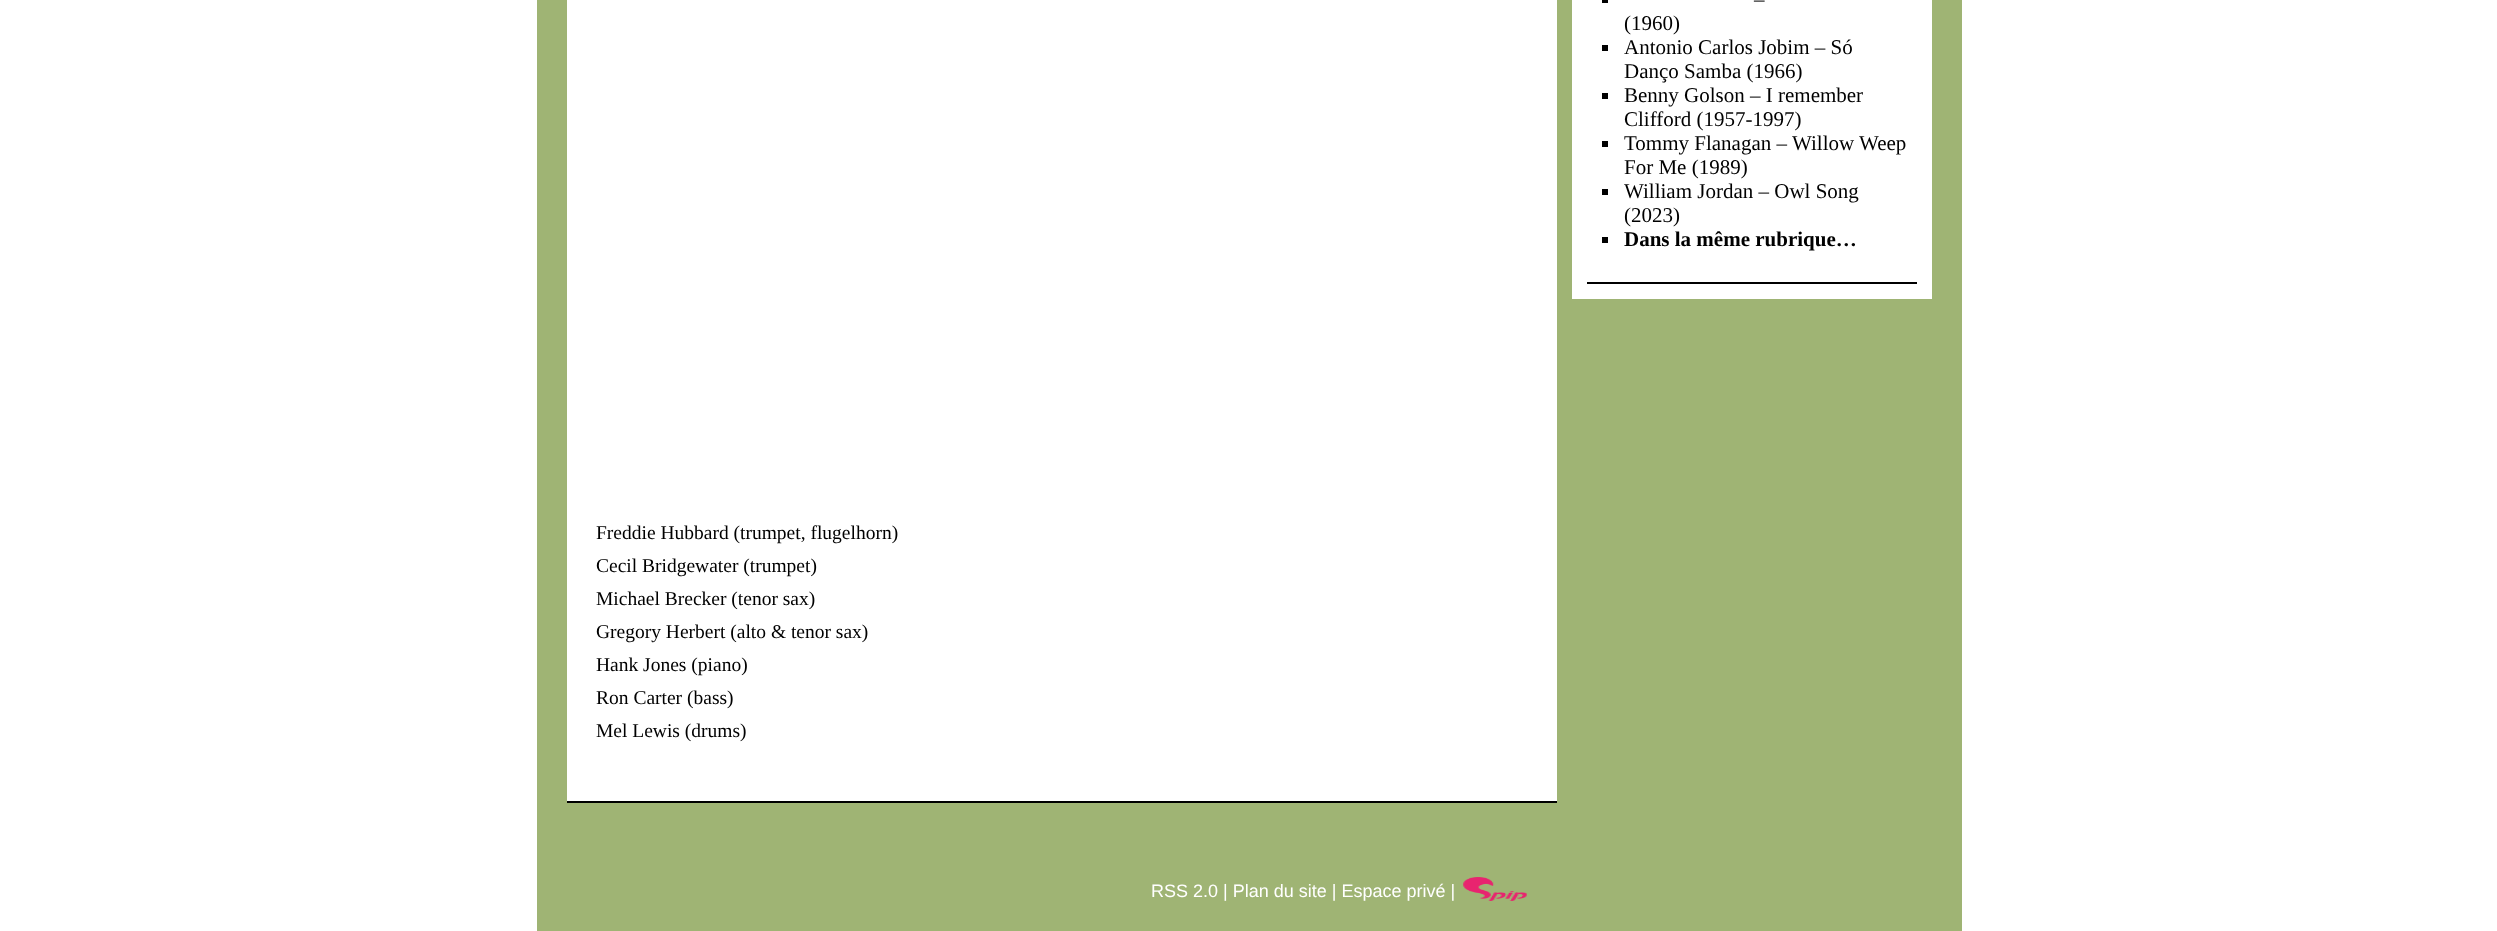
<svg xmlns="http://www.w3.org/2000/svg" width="2497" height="931">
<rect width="100%" height="100%" fill="#fff"/>
<rect x="537" width="1425" height="931" fill="#9fb474"/>
<rect x="1572" width="360" height="299" fill="#fff"/>
<rect x="1587" y="282" width="330" height="2" fill="#000"/>
<rect x="1602" width="6" height="3" fill="#000"/>
<text x="1754" y="6" style="font-family:Liberation Serif;font-size:21px;fill:#000">–</text>
<text x="1624" y="30" style="font-family:Liberation Serif;font-size:21px;fill:#000">(1960)</text>
<rect x="1602" y="45" width="6" height="6" fill="#000"/>
<text x="1624" y="54" style="font-family:Liberation Serif;font-size:21px;fill:#000">Antonio Carlos Jobim – Só</text>
<text x="1624" y="78" style="font-family:Liberation Serif;font-size:21px;fill:#000">Danço Samba (1966)</text>
<rect x="1602" y="93" width="6" height="6" fill="#000"/>
<text x="1624" y="102" style="font-family:Liberation Serif;font-size:21px;fill:#000">Benny Golson – I remember</text>
<text x="1624" y="126" style="font-family:Liberation Serif;font-size:21px;fill:#000">Clifford (1957-1997)</text>
<rect x="1602" y="141" width="6" height="6" fill="#000"/>
<text x="1624" y="150" style="font-family:Liberation Serif;font-size:21px;fill:#000">Tommy Flanagan –</text>
<text x="1792" y="150" style="font-family:Liberation Serif;font-size:21px;fill:#000">Willow Weep</text>
<text x="1624" y="174" style="font-family:Liberation Serif;font-size:21px;fill:#000">For Me (1989)</text>
<rect x="1602" y="189" width="6" height="6" fill="#000"/>
<text x="1624" y="198" style="font-family:Liberation Serif;font-size:21px;fill:#000">William Jordan – Owl Song</text>
<text x="1624" y="222" style="font-family:Liberation Serif;font-size:21px;fill:#000">(2023)</text>
<rect x="1602" y="237" width="6" height="6" fill="#000"/>
<text x="1624" y="246" style="font-family:Liberation Serif;font-size:21px;font-weight:bold;fill:#000">Dans la même rubrique…</text>
<rect x="567" width="990" height="801" fill="#fff"/>
<rect x="567" y="801" width="990" height="2" fill="#000"/>
<text x="596" y="539" style="font-family:Liberation Serif;font-size:19.5px;fill:#000">Freddie Hubbard (trumpet, flugelhorn)</text>
<text x="596" y="572" style="font-family:Liberation Serif;font-size:19.5px;fill:#000">Cecil Bridgewater (trumpet)</text>
<text x="596" y="605" style="font-family:Liberation Serif;font-size:19.5px;fill:#000">Michael Brecker (tenor sax)</text>
<text x="596" y="638" style="font-family:Liberation Serif;font-size:19.5px;fill:#000">Gregory Herbert (alto &amp; tenor sax)</text>
<text x="596" y="671" style="font-family:Liberation Serif;font-size:19.5px;fill:#000">Hank Jones (piano)</text>
<text x="596" y="704" style="font-family:Liberation Serif;font-size:19.5px;fill:#000">Ron Carter (bass)</text>
<text x="596" y="737" style="font-family:Liberation Serif;font-size:19.5px;fill:#000">Mel Lewis (drums)</text>
<text x="1151" y="897" style="font-family:Liberation Sans;font-size:18px;fill:#fff">RSS 2.0 | Plan du site | Espace privé |</text>
<image x="1463" y="877" width="64" height="24" href="media/1.png"/>
</svg>
